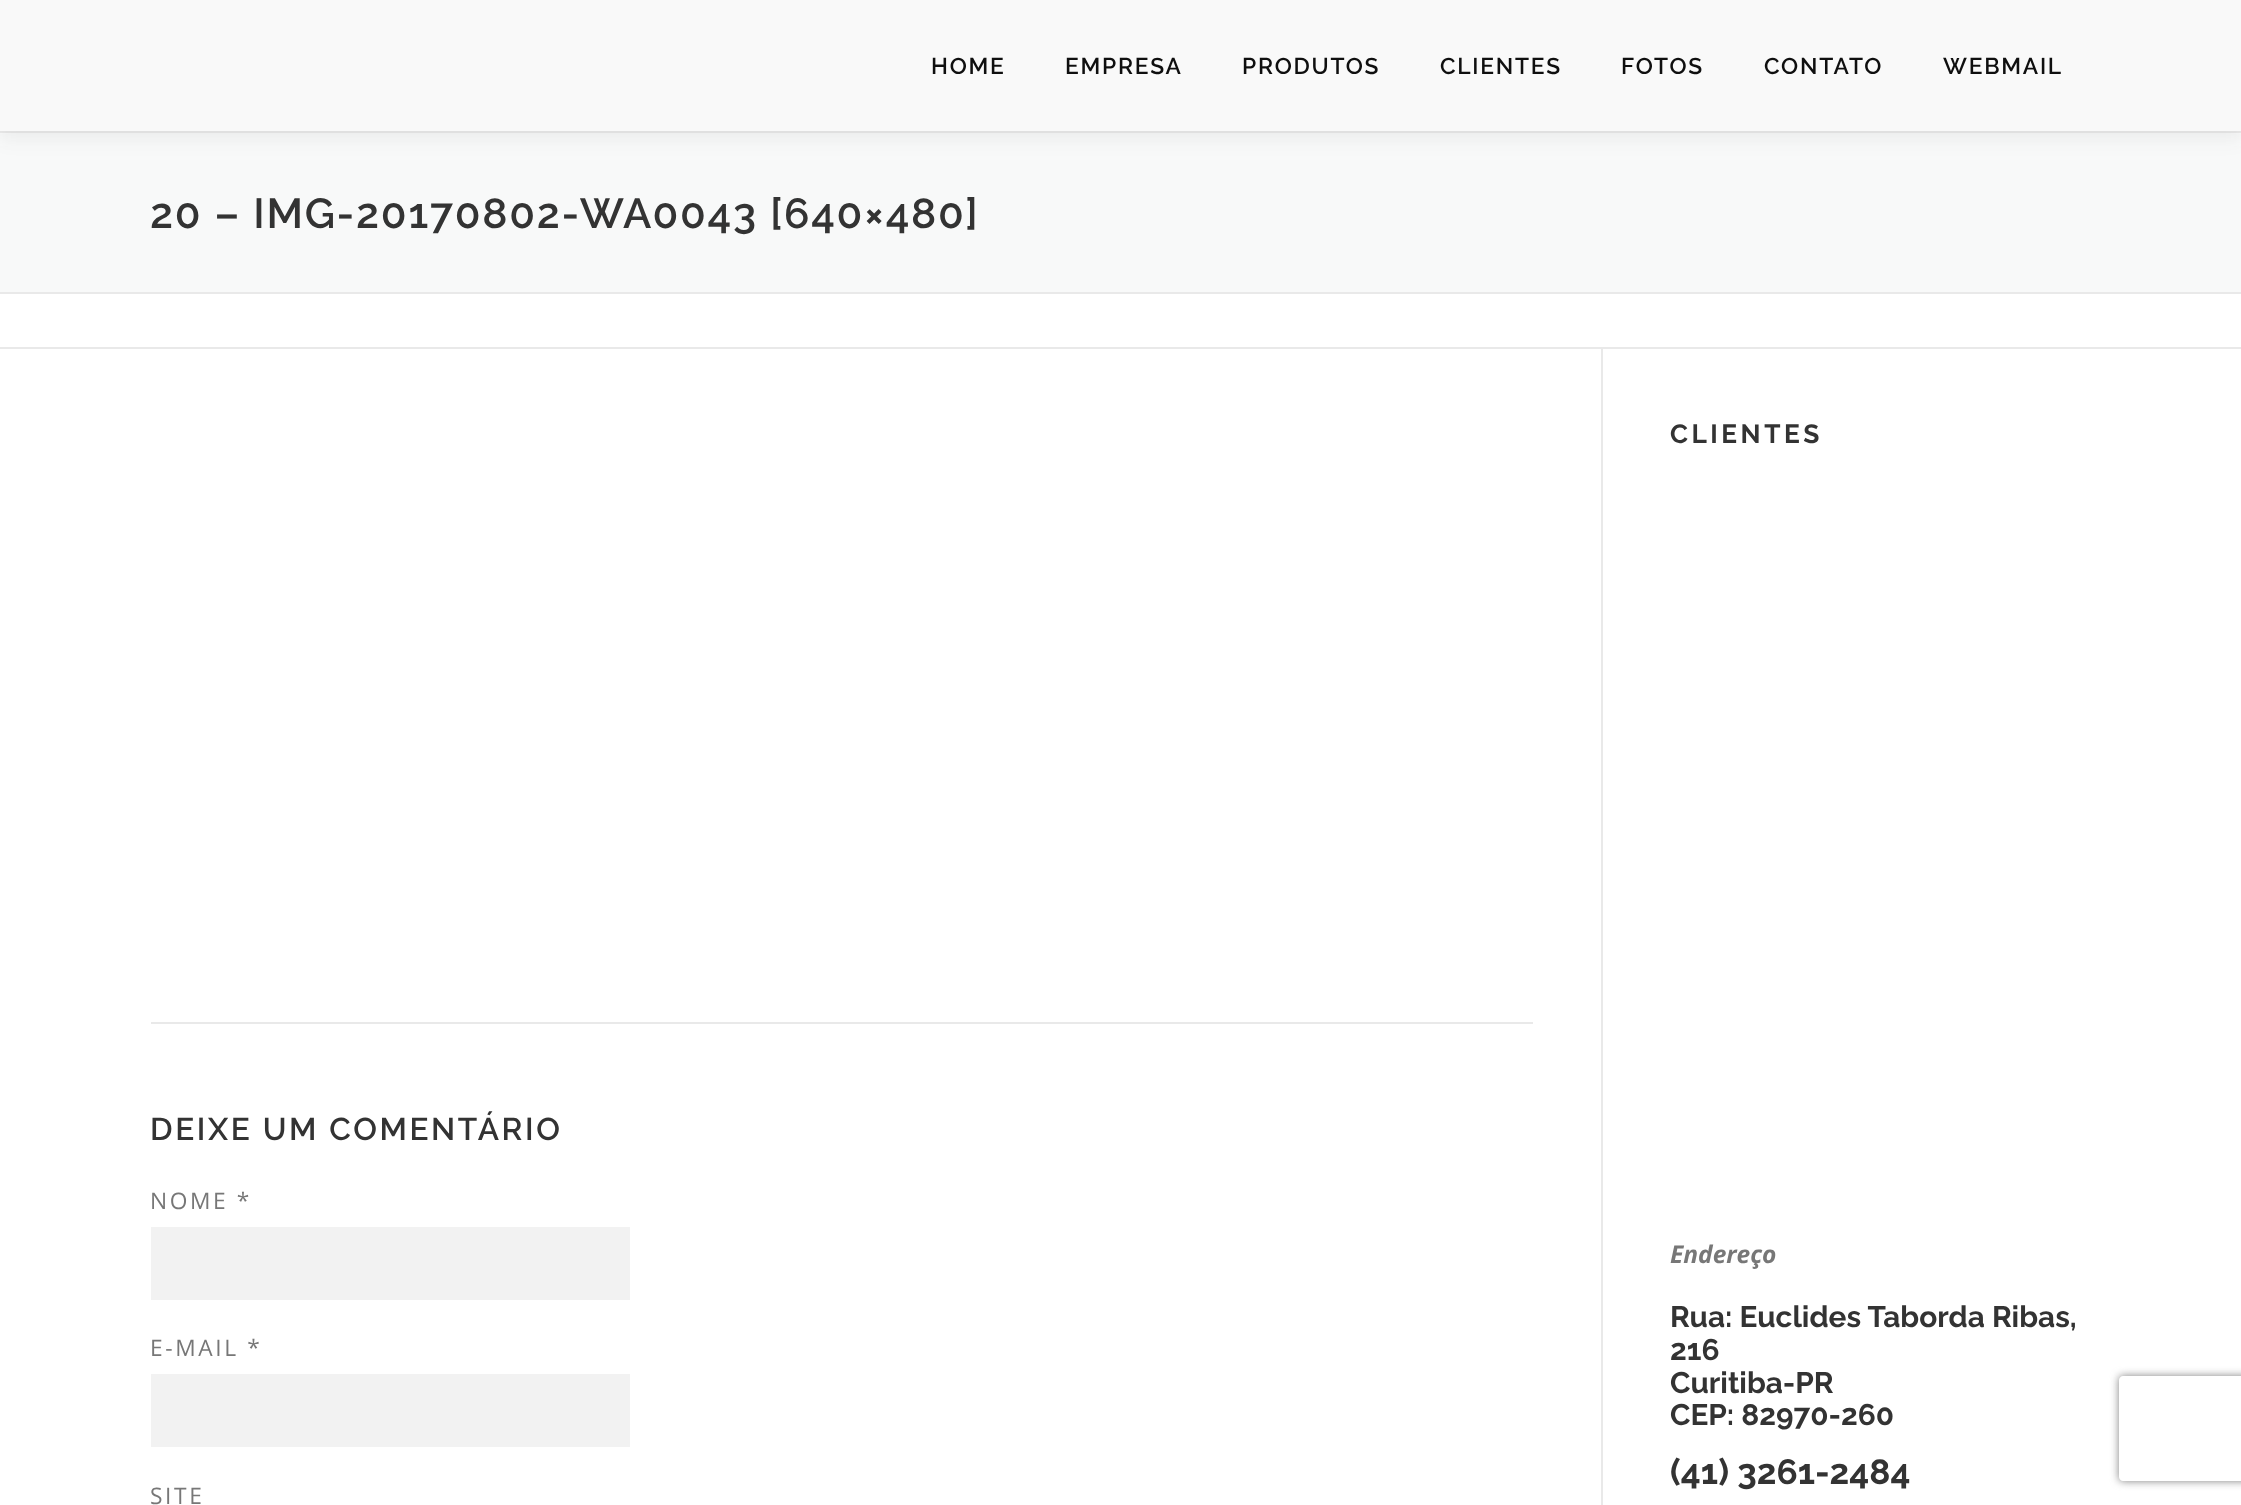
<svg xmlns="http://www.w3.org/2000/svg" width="2241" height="1505">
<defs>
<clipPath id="clip1"><path d="M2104 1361h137v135h-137zm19 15h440c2 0 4 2 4 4v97c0 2-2 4-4 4h-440c-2 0-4-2-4-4v-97c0-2 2-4 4-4z" clip-rule="evenodd"/></clipPath>
</defs>
<rect width="100%" height="100%" fill="#fff"/>
<rect y="133" width="2241" height="159" fill="#f8f9f9"/>
<rect y="131" width="2241" height="2" fill="#e9e9e9"/>
<rect y="9" width="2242" height="131" fill="#3232320f" filter="blur(9px)"/>
<rect width="2241" height="131" fill="#f9f9f9"/>
<text x="931" y="74" style="font-family:Raleway;font-size:22.75px;font-weight:600;letter-spacing:1.75px;fill:#0f0f0f">HOME</text>
<text x="1065" y="74" style="font-family:Raleway;font-size:22.75px;font-weight:600;letter-spacing:1.75px;fill:#0f0f0f">EMPRESA</text>
<text x="1242" y="74" style="font-family:Raleway;font-size:22.75px;font-weight:600;letter-spacing:1.75px;fill:#0f0f0f">PRODUTOS</text>
<text x="1440" y="74" style="font-family:Raleway;font-size:22.75px;font-weight:600;letter-spacing:1.75px;fill:#0f0f0f">CLIENTES</text>
<text x="1621" y="74" style="font-family:Raleway;font-size:22.75px;font-weight:600;letter-spacing:1.75px;fill:#0f0f0f">FOTOS</text>
<text x="1764" y="74" style="font-family:Raleway;font-size:22.75px;font-weight:600;letter-spacing:1.75px;fill:#0f0f0f">CONTATO</text>
<text x="1943" y="74" style="font-family:Raleway;font-size:22.75px;font-weight:600;letter-spacing:1.75px;fill:#0f0f0f">WEBMAIL</text>
<rect y="292" width="2241" height="2" fill="#e9e9e9"/>
<text x="150" y="228" style="font-family:Raleway;font-size:42px;font-weight:600;letter-spacing:1.75px;fill:#333">20 – IMG-20170802-WA0043 [640×480]</text>
<rect y="347" width="2241" height="2" fill="#e9e9e9"/>
<rect x="1601" y="348" width="2" height="1157" fill="#e9e9e9"/>
<rect x="151" y="1022" width="1382" height="2" fill="#e9e9e9"/>
<text x="150" y="1140" style="font-family:Raleway;font-size:31.5px;font-weight:600;letter-spacing:2.6px;fill:#333">DEIXE UM COMENTÁRIO</text>
<text x="150" y="1209" style="font-family:Open Sans;font-size:22.75px;letter-spacing:2.6px;fill:#777">NOME *</text>
<rect x="151" y="1227" width="479" height="73" fill="#f2f2f2"/>
<text x="150" y="1356" style="font-family:Open Sans;font-size:22.75px;letter-spacing:2.6px;fill:#777">E-MAIL *</text>
<rect x="151" y="1374" width="479" height="73" fill="#f2f2f2"/>
<text x="150" y="1504" style="font-family:Open Sans;font-size:22.75px;letter-spacing:2.6px;fill:#777">SITE</text>
<text x="1670" y="443" style="font-family:Raleway;font-size:26.25px;font-weight:bold;letter-spacing:3.5px;fill:#333">CLIENTES</text>
<text x="1670" y="1263" style="font-family:Open Sans;font-size:24.5px;font-weight:bold;font-style:italic;fill:#777">Endereço</text>
<text x="1670" y="1327" style="font-family:Raleway;font-size:29.75px;font-weight:bold;fill:#333">Rua: Euclides Taborda Ribas,</text>
<text x="1670" y="1360" style="font-family:Raleway;font-size:29.75px;font-weight:bold;fill:#333">216</text>
<text x="1670" y="1393" style="font-family:Raleway;font-size:29.75px;font-weight:bold;fill:#333">Curitiba-PR</text>
<text x="1670" y="1425" style="font-family:Raleway;font-size:29.75px;font-weight:bold;fill:#333">CEP: 82970-260</text>
<text x="1670" y="1484" style="font-family:Raleway;font-size:35px;font-weight:bold;fill:#333">(41) 3261-2484</text>
<g clip-path="url(#clip1)">
<rect x="2119" y="1376" width="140" height="105" rx="4" fill="#808080" filter="blur(4.5px)"/>
</g>
</svg>
